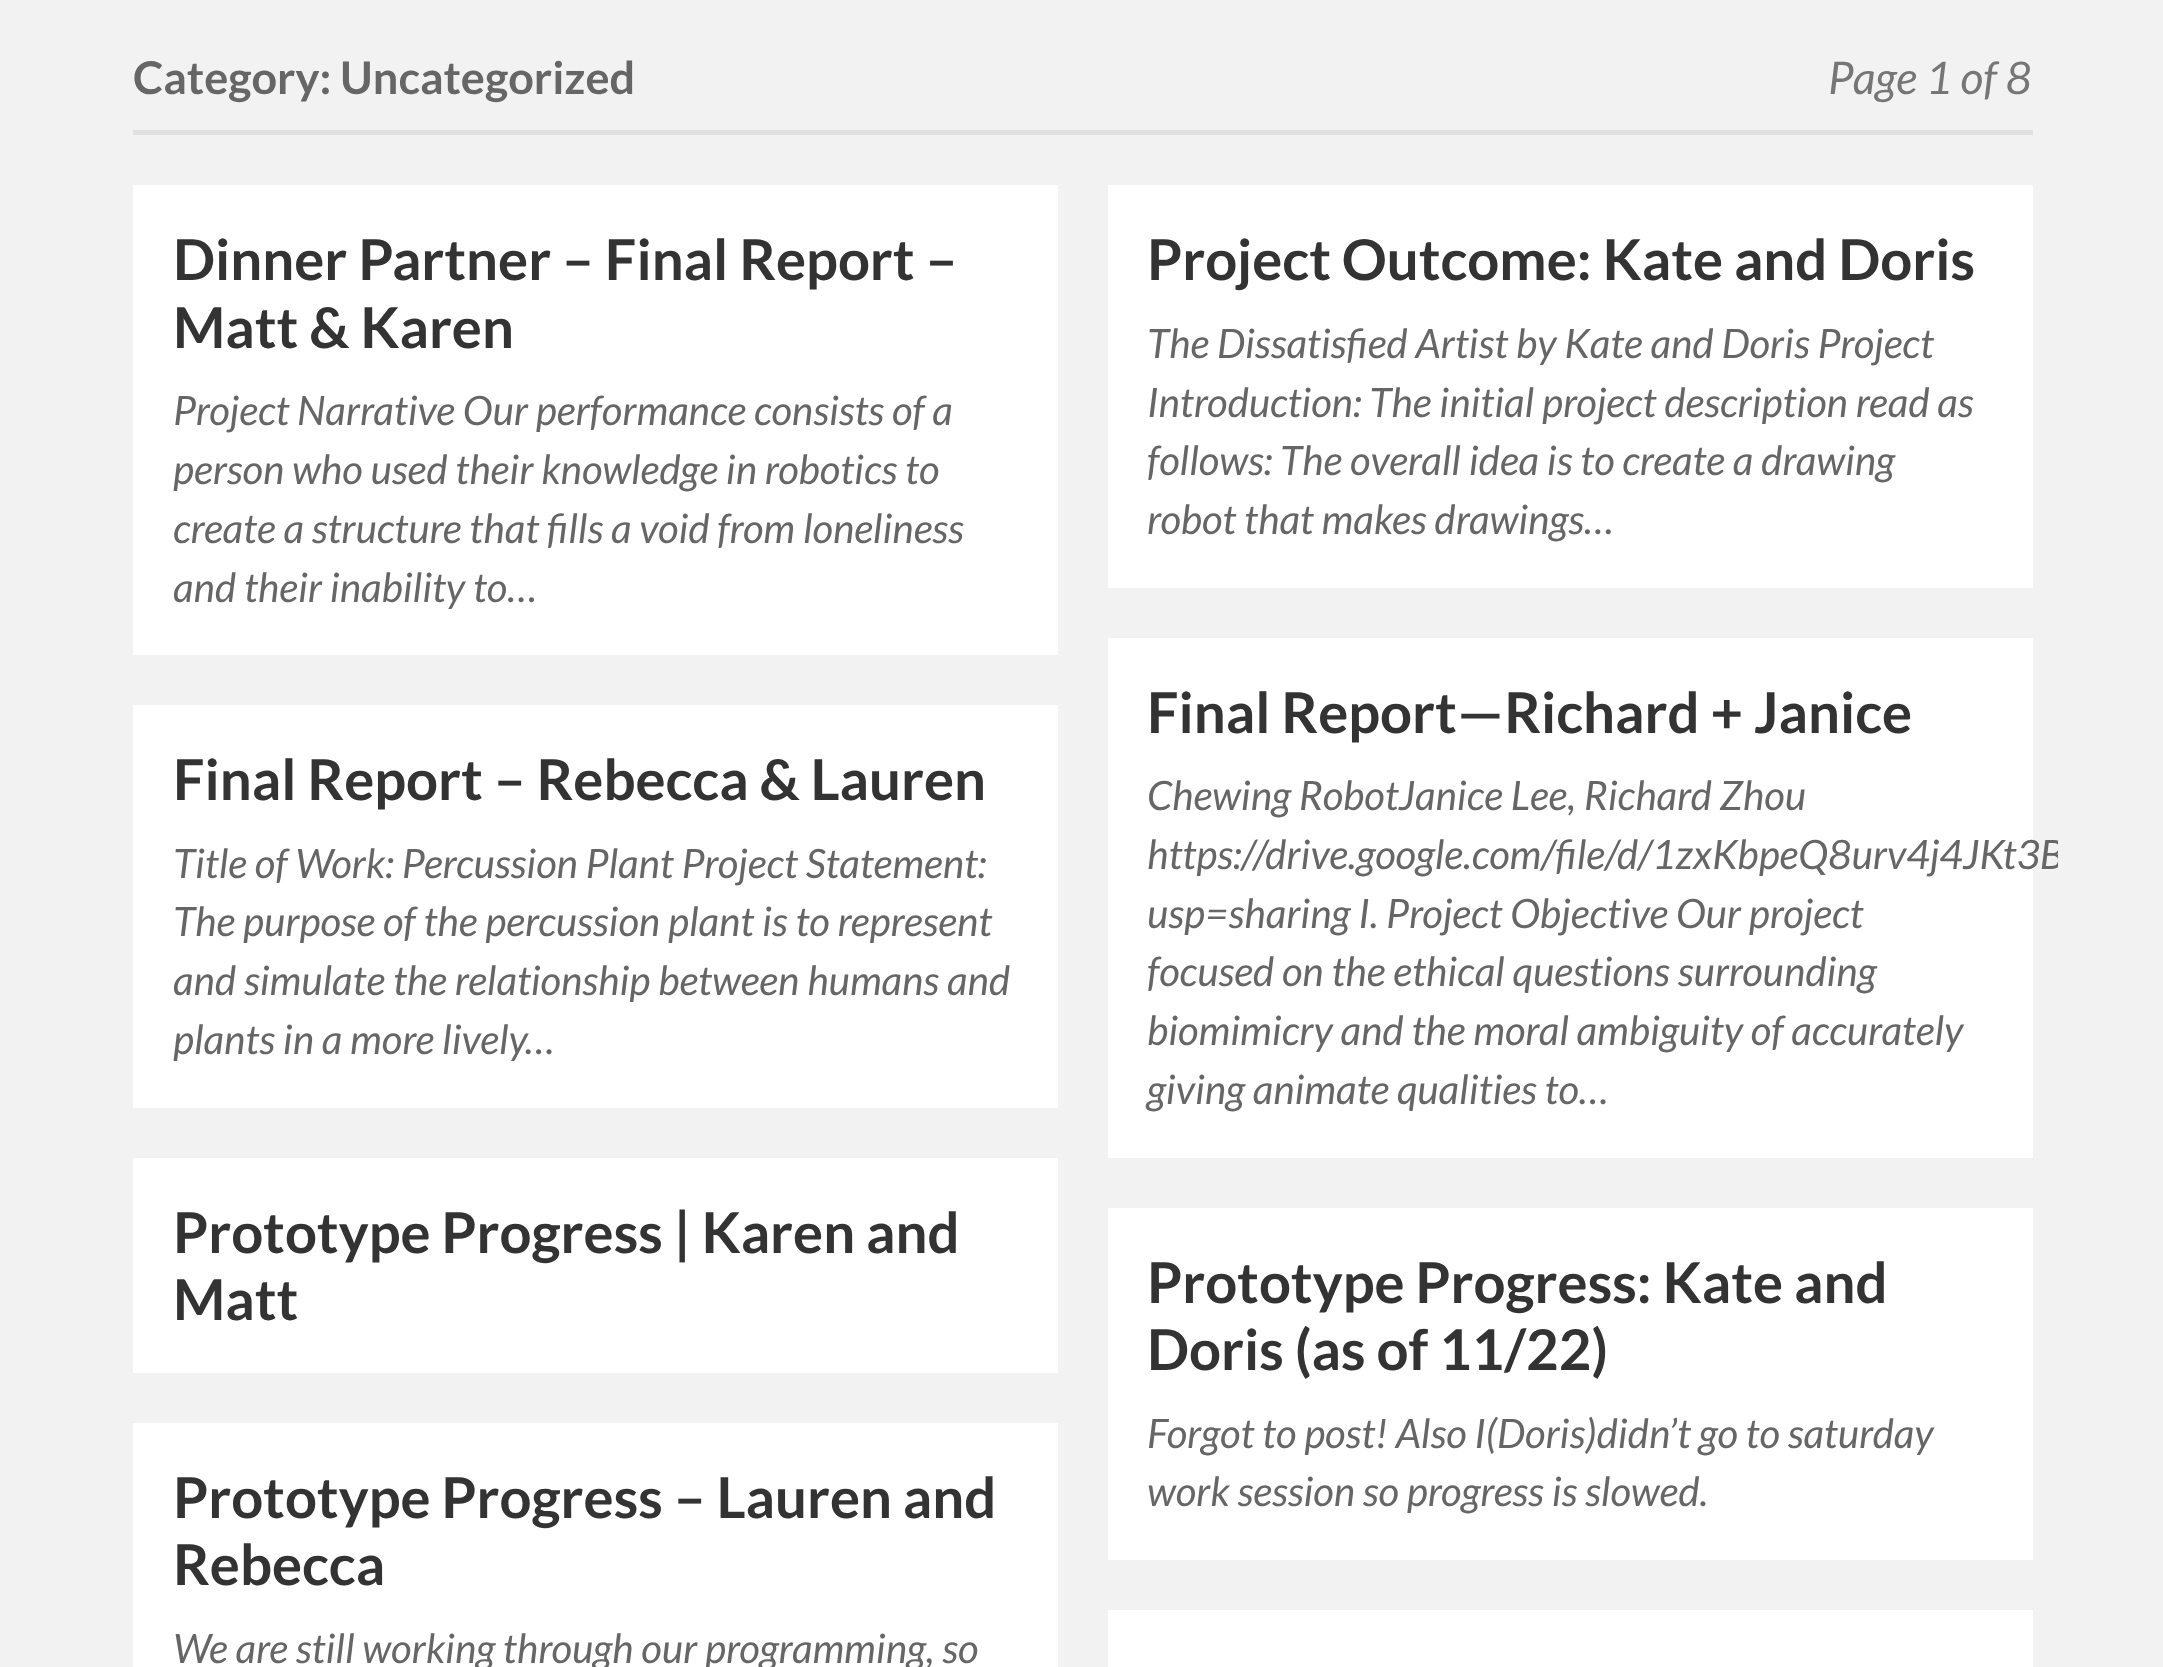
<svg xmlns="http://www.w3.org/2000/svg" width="2163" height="1667">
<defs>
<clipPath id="clip1"><rect x="1083" y="613" width="975" height="570"/></clipPath>
</defs>
<rect width="100%" height="100%" fill="#f2f2f2"/>
<rect x="133" y="130" width="1900" height="5" fill="#e1e1e1"/>
<text x="133" y="94" style="font-family:Lato;font-size:45px;font-weight:bold;fill:#666">Category: Uncategorized</text>
<text x="1828" y="94" style="font-family:Lato;font-size:45px;font-style:italic;fill:#767676">Page 1 of 8</text>
<rect x="133" y="185" width="925" height="470" fill="#fff"/>
<text x="173" y="280" style="font-family:Lato;font-size:56.25px;font-weight:bold;fill:#333">Dinner Partner – Final Report –</text>
<text x="173" y="348" style="font-family:Lato;font-size:56.25px;font-weight:bold;fill:#333">Matt &amp; Karen</text>
<text x="173" y="425" style="font-family:Lato;font-size:40.5px;font-style:italic;fill:#666">Project Narrative Our performance consists of a</text>
<text x="173" y="484" style="font-family:Lato;font-size:40.5px;font-style:italic;fill:#666">person who used their knowledge in robotics to</text>
<text x="173" y="543" style="font-family:Lato;font-size:40.5px;font-style:italic;fill:#666">create a structure that fills a void from loneliness</text>
<text x="173" y="602" style="font-family:Lato;font-size:40.5px;font-style:italic;fill:#666">and their inability to…</text>
<rect x="1108" y="185" width="925" height="403" fill="#fff"/>
<text x="1147" y="280" style="font-family:Lato;font-size:56.25px;font-weight:bold;fill:#333">Project Outcome: Kate and Doris</text>
<text x="1147" y="358" style="font-family:Lato;font-size:40.5px;font-style:italic;fill:#666">The Dissatisfied Artist by Kate and Doris Project</text>
<text x="1147" y="417" style="font-family:Lato;font-size:40.5px;font-style:italic;fill:#666">Introduction: The initial project description read as</text>
<text x="1147" y="475" style="font-family:Lato;font-size:40.5px;font-style:italic;fill:#666">follows: The overall idea is to create a drawing</text>
<text x="1147" y="534" style="font-family:Lato;font-size:40.5px;font-style:italic;fill:#666">robot that makes drawings…</text>
<rect x="133" y="705" width="925" height="403" fill="#fff"/>
<text x="173" y="800" style="font-family:Lato;font-size:56.25px;font-weight:bold;fill:#333">Final Report – Rebecca &amp; Lauren</text>
<text x="173" y="878" style="font-family:Lato;font-size:40.5px;font-style:italic;fill:#666">Title of Work: Percussion Plant Project Statement:</text>
<text x="173" y="936" style="font-family:Lato;font-size:40.5px;font-style:italic;fill:#666">The purpose of the percussion plant is to represent</text>
<text x="173" y="995" style="font-family:Lato;font-size:40.5px;font-style:italic;fill:#666">and simulate the relationship between humans and</text>
<text x="173" y="1054" style="font-family:Lato;font-size:40.5px;font-style:italic;fill:#666">plants in a more lively…</text>
<rect x="1108" y="638" width="925" height="520" fill="#fff"/>
<text x="1147" y="733" style="font-family:Lato;font-size:56.25px;font-weight:bold;fill:#333">Final Report—Richard + Janice</text>
<text x="1147" y="810" style="font-family:Lato;font-size:40.5px;font-style:italic;fill:#666">Chewing RobotJanice Lee, Richard Zhou</text>
<g clip-path="url(#clip1)">
<text x="1147" y="869" style="font-family:Lato;font-size:40.5px;font-style:italic;fill:#666">https://drive.google.com/file/d/1zxKbpeQ8urv4j4JKt3B</text>
</g>
<text x="1147" y="928" style="font-family:Lato;font-size:40.5px;font-style:italic;fill:#666">usp=sharing I. Project Objective Our project</text>
<text x="1147" y="986" style="font-family:Lato;font-size:40.5px;font-style:italic;fill:#666">focused on the ethical questions surrounding</text>
<text x="1147" y="1045" style="font-family:Lato;font-size:40.5px;font-style:italic;fill:#666">biomimicry and the moral ambiguity of accurately</text>
<text x="1147" y="1104" style="font-family:Lato;font-size:40.5px;font-style:italic;fill:#666">giving animate qualities to…</text>
<rect x="133" y="1158" width="925" height="215" fill="#fff"/>
<text x="173" y="1253" style="font-family:Lato;font-size:56.25px;font-weight:bold;fill:#333">Prototype Progress | Karen and</text>
<text x="173" y="1320" style="font-family:Lato;font-size:56.25px;font-weight:bold;fill:#333">Matt</text>
<rect x="1108" y="1208" width="925" height="352" fill="#fff"/>
<text x="1147" y="1303" style="font-family:Lato;font-size:56.25px;font-weight:bold;fill:#333">Prototype Progress: Kate and</text>
<text x="1147" y="1370" style="font-family:Lato;font-size:56.25px;font-weight:bold;fill:#333">Doris (as of 11/22)</text>
<text x="1147" y="1448" style="font-family:Lato;font-size:40.5px;font-style:italic;fill:#666">Forgot to post! Also I(Doris)didn’t go to saturday</text>
<text x="1147" y="1506" style="font-family:Lato;font-size:40.5px;font-style:italic;fill:#666">work session so progress is slowed.</text>
<rect x="133" y="1423" width="925" height="244" fill="#fff"/>
<text x="173" y="1518" style="font-family:Lato;font-size:56.25px;font-weight:bold;fill:#333">Prototype Progress – Lauren and</text>
<text x="173" y="1585" style="font-family:Lato;font-size:56.25px;font-weight:bold;fill:#333">Rebecca</text>
<text x="173" y="1663" style="font-family:Lato;font-size:40.5px;font-style:italic;fill:#666">We are still working through our programming, so</text>
<rect x="1108" y="1610" width="925" height="57" fill="#fff"/>
</svg>
